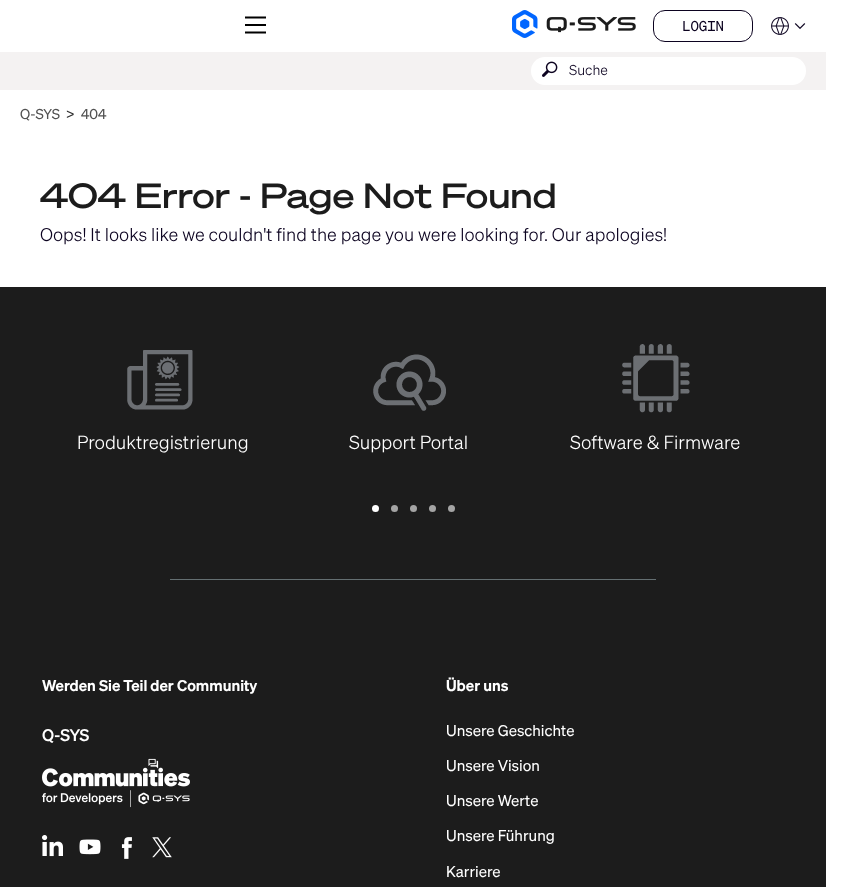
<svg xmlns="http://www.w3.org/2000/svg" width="841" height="887">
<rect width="100%" height="100%" fill="#fff"/>
<path d="M266 32.5h-21m0-15h21" fill="none" stroke="#000" stroke-width="2.1"/>
<rect x="245" y="24" width="21" height="2" fill="#000"/>
<image x="512" y="10" width="124" height="28" href="media/1.png"/>
<rect x="653.5" y="10.5" width="99" height="31" rx="11.5" fill="none" stroke="#0c0320"/>
<text x="682" y="31" style="font-family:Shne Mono;font-size:14px;fill:#0c0320">LOGIN</text>
<image x="771" y="17" width="35" height="18" href="media/2.png"/>
<rect y="52" width="826" height="38" fill="#f4f2f2"/>
<rect x="531" y="57" width="275" height="28" rx="14" fill="#fff"/>
<image x="542" y="61" width="16" height="16" href="media/3.png"/>
<text x="569" y="75" style="font-family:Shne;font-size:14px;font-weight:300;fill:#0c0320">Suche</text>
<text x="20" y="119" style="font-family:Shne;font-size:14px;fill:#515151">Q-SYS</text>
<text x="66" y="119" style="font-family:Shne;font-size:14px;fill:#2e2e2e">&gt;</text>
<text x="81" y="119" style="font-family:Shne;font-size:14px;fill:#515151">404</text>
<text x="40" y="208" style="font-family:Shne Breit;font-size:34.25px;font-weight:500;fill:#1c1c1c">404 Error - Page Not Found</text>
<text x="40" y="241" style="font-family:Shne;font-size:18px;font-weight:300;fill:#0c0320">Oops! It looks like we couldn't find the page you were looking for. Our apologies!</text>
<rect y="287" width="826" height="600" fill="#1c1c1c"/>
<image x="127" y="350" width="66" height="60" href="media/4.png"/>
<text x="77" y="449" style="font-family:Shne;font-size:18.5px;font-weight:300;fill:#fff">Produktregistrierung</text>
<image x="373" y="354" width="73" height="57" href="media/5.png"/>
<text x="349" y="449" style="font-family:Shne;font-size:18.5px;font-weight:300;fill:#fff">Support Portal</text>
<image x="622" y="344" width="68" height="69" href="media/6.png"/>
<text x="570" y="449" style="font-family:Shne;font-size:18.5px;font-weight:300;fill:#fff">Software &amp; Firmware</text>
<circle cx="375.5" cy="508.5" r="3.5" fill="#fff"/>
<circle cx="394.5" cy="508.5" r="3.5" fill="#a4a4a4"/>
<circle cx="413.5" cy="508.5" r="3.5" fill="#a4a4a4"/>
<circle cx="432.5" cy="508.5" r="3.5" fill="#a4a4a4"/>
<circle cx="451.5" cy="508.5" r="3.5" fill="#a4a4a4"/>
<rect x="170" y="579" width="486" height="1" fill="#646f72"/>
<text x="42" y="691" style="font-family:Shne;font-size:15.25px;font-weight:600;fill:#fff">Werden Sie Teil der Community</text>
<text x="42" y="741" style="font-family:Shne;font-size:16.5px;font-weight:500;fill:#fff">Q-SYS</text>
<image x="42" y="758" width="148" height="50" href="media/7.png"/>
<image x="42" y="835" width="21" height="22" href="media/8.png"/>
<image x="79" y="839" width="22" height="16" href="media/9.png"/>
<image x="121" y="837" width="11" height="22" href="media/10.png"/>
<image x="152" y="837" width="20" height="21" href="media/11.png"/>
<text x="446" y="691" style="font-family:Shne;font-size:15.25px;font-weight:600;fill:#fff">Über uns</text>
<text x="446" y="736" style="font-family:Shne;font-size:15.25px;fill:#fff">Unsere Geschichte</text>
<text x="446" y="771" style="font-family:Shne;font-size:15.25px;fill:#fff">Unsere Vision</text>
<text x="446" y="806" style="font-family:Shne;font-size:15.25px;fill:#fff">Unsere Werte</text>
<text x="446" y="841" style="font-family:Shne;font-size:15.25px;fill:#fff">Unsere Führung</text>
<text x="446" y="877" style="font-family:Shne;font-size:15.25px;fill:#fff">Karriere</text>
</svg>
